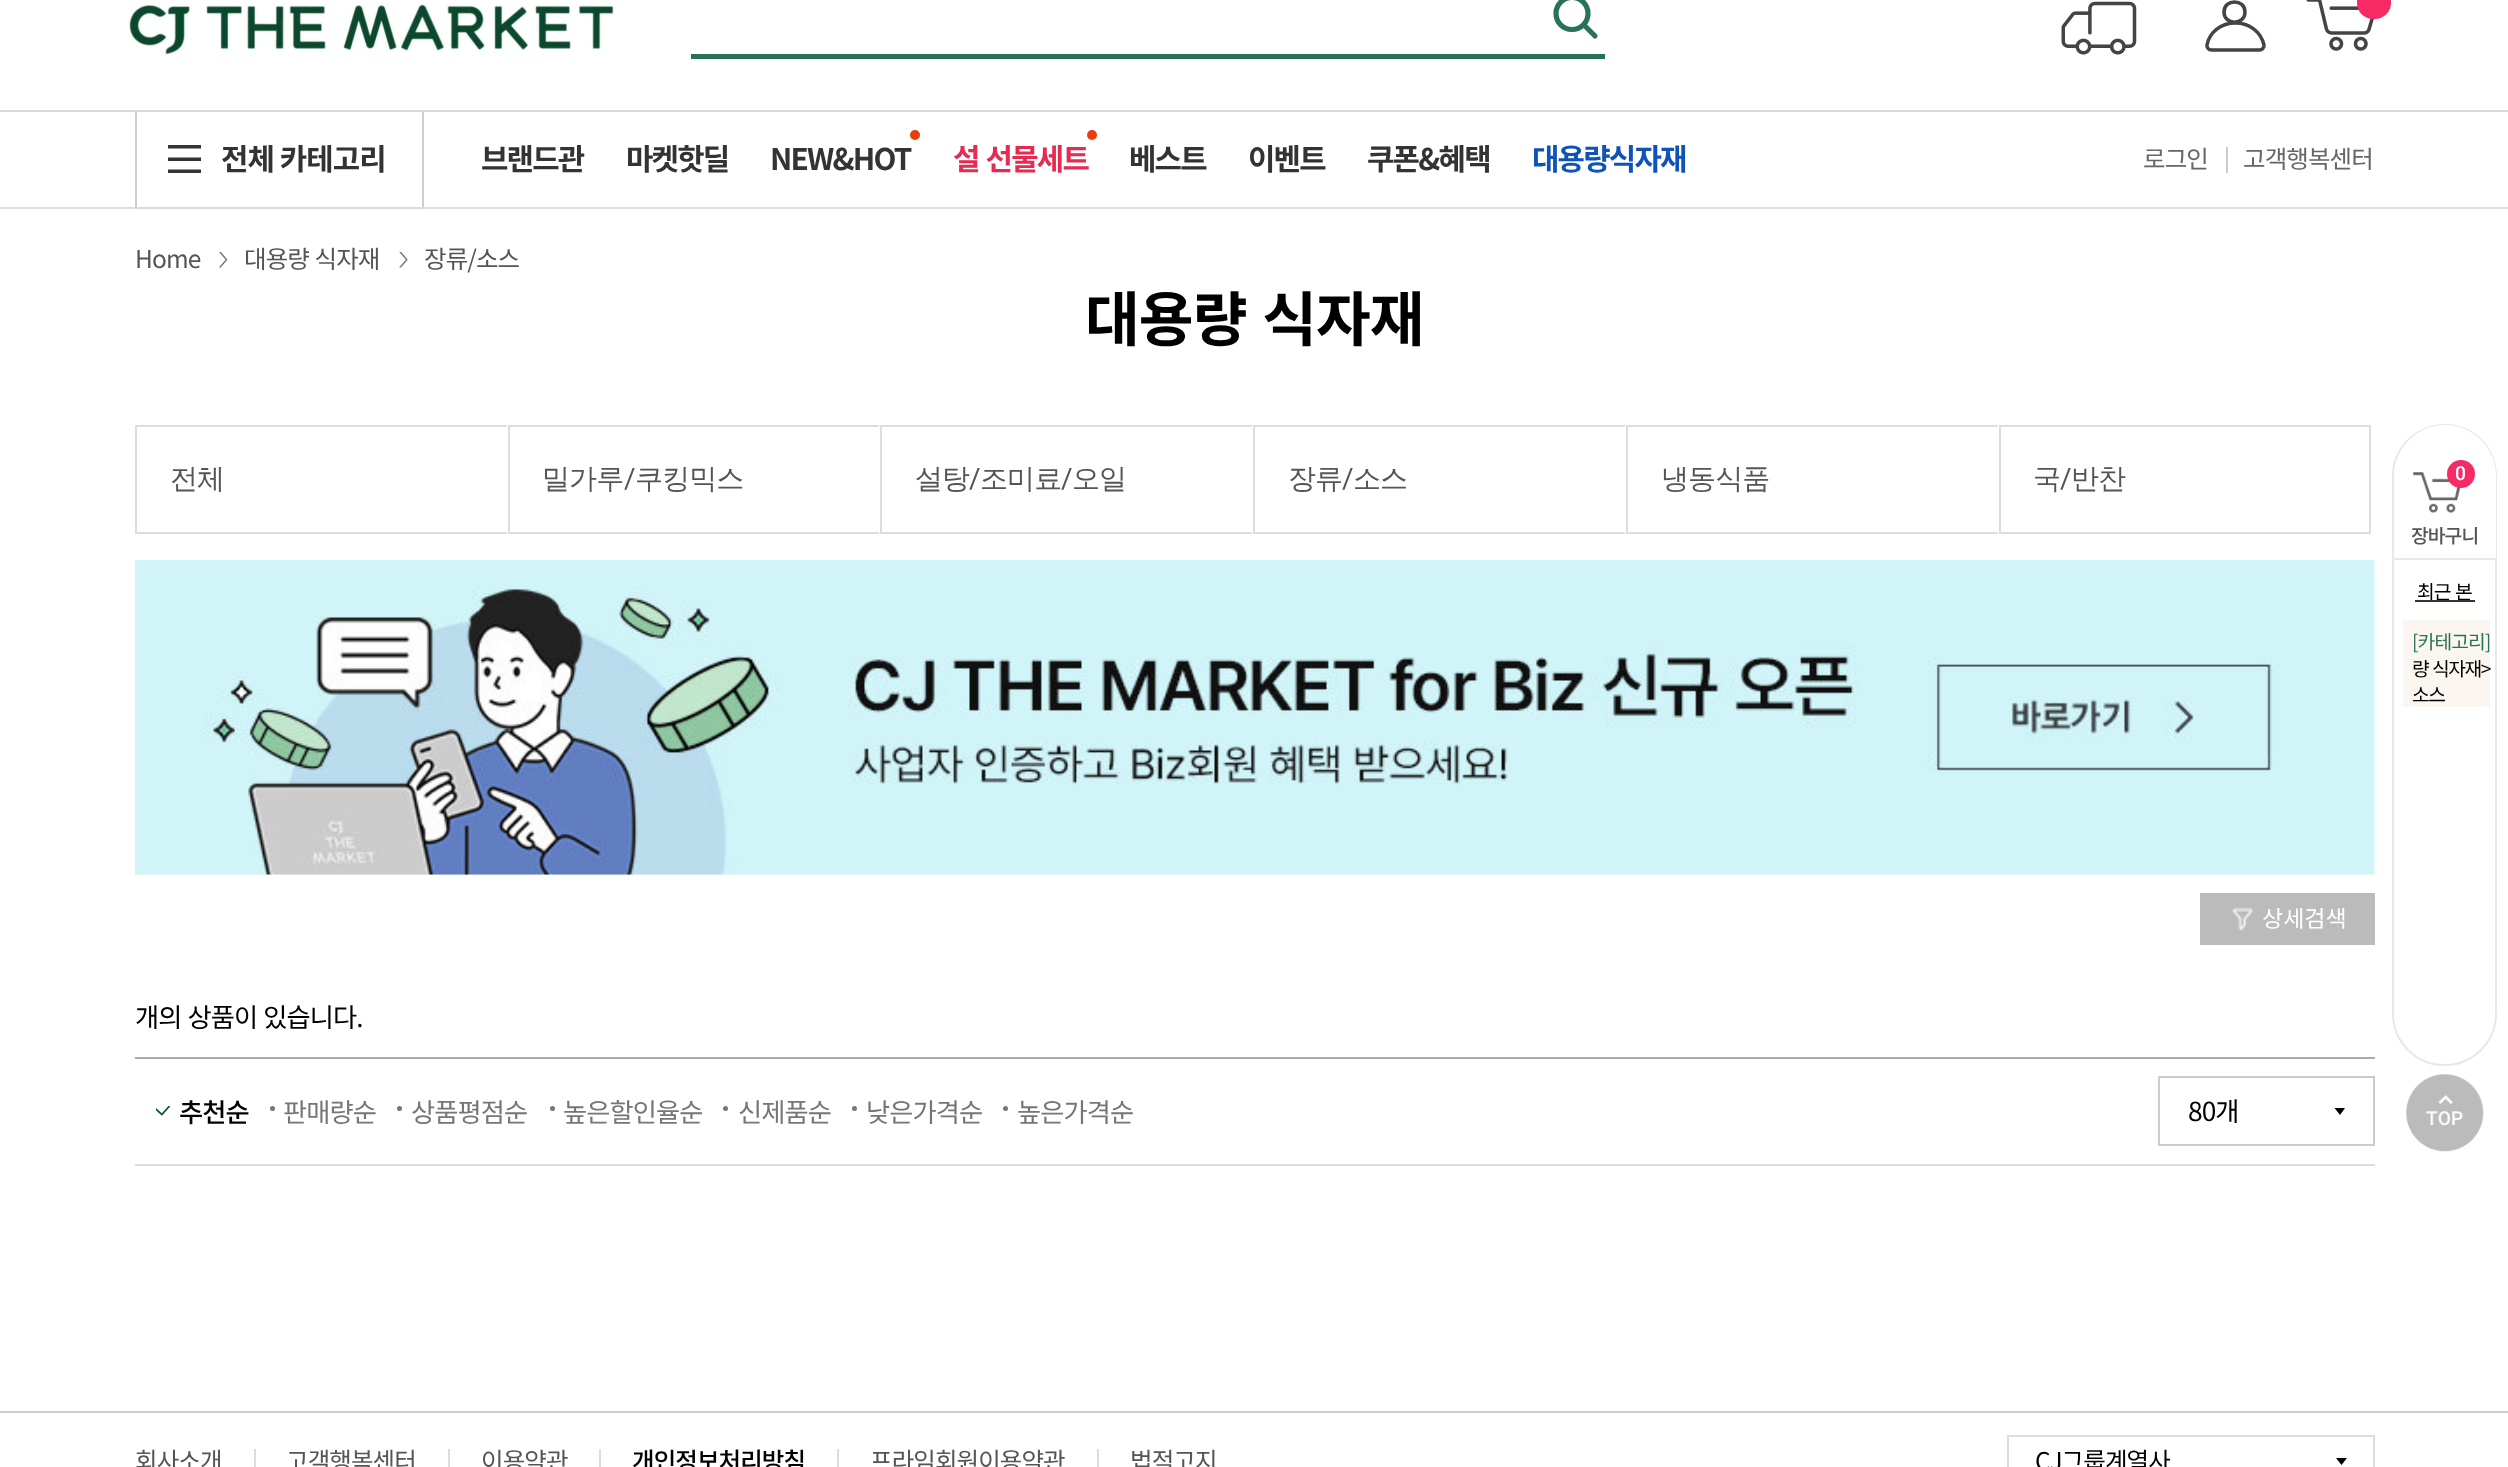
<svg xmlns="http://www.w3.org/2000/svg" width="2508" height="1467">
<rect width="100%" height="100%" fill="#fff"/>
<rect y="110" width="2508" height="2" fill="#d9d9d9"/>
<image x="129" y="4" width="487" height="51" href="media/1.png"/>
<path d="M1584.5 25.5l10.5 10.5" fill="none" stroke="#2a715a" stroke-width="5.2" stroke-linecap="round"/>
<circle cx="1572" cy="13.5" r="16" fill="none" stroke="#2a715a" stroke-width="5.2"/>
<rect x="691" y="54" width="914" height="5" fill="#2a715a"/>
<image x="2061" y="1" width="76" height="54" href="media/2.png"/>
<path d="M2245 12c0-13.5-21-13.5-21 0c0 13.5 21 13.5 21 0z" fill="none" stroke="#444" stroke-width="3.5"/>
<path d="M2211.5 50c-3 0-5-2.5-4.5-5c2.5-13 14-22 28.5-22c14 0 25.5 9 28.5 22c.5 2.5-2 5-4.5 5z" fill="none" stroke="#444" stroke-width="3.5" stroke-linecap="round"/>
<image x="2306" y="0" width="68" height="51" href="media/3.png"/>
<rect x="2357" y="-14" width="34" height="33" rx="16" fill="#f72a66"/>
<rect y="207" width="2508" height="2" fill="#ddd"/>
<rect x="422" y="112" width="2" height="96" fill="#cdcdcd"/>
<rect x="135" y="207" width="289" height="2" fill="#d9d9d9"/>
<rect x="135" y="112" width="2" height="96" fill="#cdcdcd"/>
<path d="M168 145h33v3.5h-33zm0 12.5h33v3.5h-33zm0 12h33v3.5h-33z" fill="#333" fill-rule="evenodd"/>
<text x="221" y="170" style="font-family:Noto Sans KR;font-size:29.75px;font-weight:bold;letter-spacing:-0.9px;fill:#333">전체 카테고리</text>
<text x="481" y="170" style="font-family:Noto Sans KR;font-size:29.75px;font-weight:bold;letter-spacing:-1.75px;fill:#333">브랜드관</text>
<text x="626" y="170" style="font-family:Noto Sans KR;font-size:29.75px;font-weight:bold;letter-spacing:-1.75px;fill:#333">마켓핫딜</text>
<circle cx="915" cy="135" r="5" fill="#e83e0c"/>
<text x="770" y="170" style="font-family:Noto Sans KR;font-size:29.75px;font-weight:bold;letter-spacing:-1.75px;fill:#333">NEW&amp;HOT</text>
<circle cx="1092" cy="135" r="5" fill="#e83e0c"/>
<text x="953" y="170" word-spacing="2" style="font-family:Noto Sans KR;font-size:29.75px;font-weight:bold;letter-spacing:-1.75px;fill:#e72a50">설 선물세트</text>
<text x="1129" y="170" style="font-family:Noto Sans KR;font-size:29.75px;font-weight:bold;letter-spacing:-1.75px;fill:#333">베스트</text>
<text x="1248" y="170" style="font-family:Noto Sans KR;font-size:29.75px;font-weight:bold;letter-spacing:-1.75px;fill:#333">이벤트</text>
<text x="1367" y="170" style="font-family:Noto Sans KR;font-size:29.75px;font-weight:bold;letter-spacing:-1.75px;fill:#333">쿠폰&amp;혜택</text>
<text x="1532" y="170" style="font-family:Noto Sans KR;font-size:29.75px;font-weight:bold;letter-spacing:-1.75px;fill:#0f52ba">대용량식자재</text>
<text x="2143" y="168" style="font-family:Noto Sans KR;font-size:24.5px;letter-spacing:-0.9px;fill:#666">로그인</text>
<rect x="2226" y="147" width="2" height="26" fill="#ccc"/>
<text x="2243" y="168" style="font-family:Noto Sans KR;font-size:24.5px;letter-spacing:-0.9px;fill:#666">고객행복센터</text>
<text x="135" y="268" style="font-family:Noto Sans KR;font-size:24.5px;letter-spacing:-0.9px;fill:#555">Home</text>
<image x="219" y="252" width="9" height="16" href="media/4.png"/>
<text x="244" y="268" word-spacing="1" style="font-family:Noto Sans KR;font-size:24.5px;letter-spacing:-0.9px;fill:#555">대용량 식자재</text>
<image x="399" y="252" width="9" height="16" href="media/5.png"/>
<text x="424" y="268" style="font-family:Noto Sans KR;font-size:24.5px;letter-spacing:-0.9px;fill:#555">장류/소스</text>
<text x="1085" y="341" word-spacing="3" style="font-family:Noto Sans KR;font-size:59.5px;font-weight:bold;letter-spacing:-0.9px;fill:#000">대용량 식자재</text>
<path d="M135 425h373l-2 2h-370z" fill="#ddd"/>
<path d="M508 534h-373l1-2h370z" fill="#ddd"/>
<rect x="135" y="425" width="2" height="109" fill="#ddd"/>
<text x="170" y="488" style="font-family:WenQuanYi Zen Hei;font-size:28px;font-weight:500;letter-spacing:-0.9px;fill:#555">전체</text>
<path d="M508 425h372l-2 2h-369z" fill="#ddd"/>
<path d="M880 534h-372l1-2h369z" fill="#ddd"/>
<rect x="508" y="425" width="2" height="109" fill="#ddd"/>
<text x="542" y="488" style="font-family:WenQuanYi Zen Hei;font-size:28px;font-weight:500;letter-spacing:-0.9px;fill:#555">밀가루</text>
<text x="624" y="488" style="font-family:Roboto;font-size:28px;letter-spacing:-0.9px;fill:#555">/</text>
<text x="635" y="488" style="font-family:WenQuanYi Zen Hei;font-size:28px;font-weight:500;letter-spacing:-0.9px;fill:#555">쿠킹믹스</text>
<path d="M880 425h373l-2 2h-369z" fill="#ddd"/>
<path d="M1253 534h-373l2-2h369z" fill="#ddd"/>
<rect x="880" y="425" width="2" height="109" fill="#ddd"/>
<text x="915" y="488" style="font-family:WenQuanYi Zen Hei;font-size:28px;font-weight:500;letter-spacing:-0.9px;fill:#555">설탕</text>
<text x="969" y="488" style="font-family:Roboto;font-size:28px;letter-spacing:-0.9px;fill:#555">/</text>
<text x="980" y="488" style="font-family:WenQuanYi Zen Hei;font-size:28px;font-weight:500;letter-spacing:-0.9px;fill:#555">조미료</text>
<text x="1061" y="488" style="font-family:Roboto;font-size:28px;letter-spacing:-0.9px;fill:#555">/</text>
<text x="1072" y="488" style="font-family:WenQuanYi Zen Hei;font-size:28px;font-weight:500;letter-spacing:-0.9px;fill:#555">오일</text>
<path d="M1253 425h373l-2 2h-369z" fill="#ddd"/>
<path d="M1626 534h-373l2-2h369z" fill="#ddd"/>
<rect x="1253" y="425" width="2" height="109" fill="#ddd"/>
<text x="1288" y="488" style="font-family:WenQuanYi Zen Hei;font-size:28px;font-weight:500;letter-spacing:-0.9px;fill:#555">장류</text>
<text x="1342" y="488" style="font-family:Roboto;font-size:28px;letter-spacing:-0.9px;fill:#555">/</text>
<text x="1353" y="488" style="font-family:WenQuanYi Zen Hei;font-size:28px;font-weight:500;letter-spacing:-0.9px;fill:#555">소스</text>
<path d="M1626 425h372l-1 2h-369z" fill="#ddd"/>
<path d="M1998 534h-372l2-2h369z" fill="#ddd"/>
<rect x="1626" y="425" width="2" height="109" fill="#ddd"/>
<text x="1661" y="488" style="font-family:WenQuanYi Zen Hei;font-size:28px;font-weight:500;letter-spacing:-0.9px;fill:#555">냉동식품</text>
<rect x="2000" y="426" width="370" height="107" fill="none" stroke="#ddd" stroke-width="2"/>
<text x="2033" y="488" style="font-family:WenQuanYi Zen Hei;font-size:28px;font-weight:500;letter-spacing:-0.9px;fill:#555">국</text>
<text x="2060" y="488" style="font-family:Roboto;font-size:28px;letter-spacing:-0.9px;fill:#555">/</text>
<text x="2071" y="488" style="font-family:WenQuanYi Zen Hei;font-size:28px;font-weight:500;letter-spacing:-0.9px;fill:#555">반찬</text>
<image x="135" y="560" width="2240" height="315" href="media/6.png"/>
<rect x="2200" y="893" width="175" height="52" fill="#bbb"/>
<image x="2232" y="907" width="21" height="24" href="media/7.png"/>
<text x="2262" y="927" style="font-family:Noto Sans KR;font-size:23px;fill:#fff">상세검색</text>
<text x="135" y="1027" word-spacing="1" style="font-family:Noto Sans KR;font-size:26.25px;letter-spacing:-0.9px;fill:#000">개의 상품이 있습니다.</text>
<rect x="135" y="1057" width="2240" height="2" fill="#aaa"/>
<rect x="135" y="1164" width="2240" height="2" fill="#ddd"/>
<image x="156" y="1106" width="14" height="10" href="media/8.png"/>
<text x="179" y="1122" style="font-family:Noto Sans KR;font-size:26.25px;font-weight:500;letter-spacing:-0.9px;fill:#000">추천순</text>
<circle cx="272.5" cy="1108.5" r="2.5" fill="#767676"/>
<text x="283" y="1122" style="font-family:Noto Sans KR;font-size:26.25px;letter-spacing:-0.9px;fill:#767676">판매량순</text>
<circle cx="399.5" cy="1108.5" r="2.5" fill="#767676"/>
<text x="411" y="1122" style="font-family:Noto Sans KR;font-size:26.25px;letter-spacing:-0.9px;fill:#767676">상품평점순</text>
<circle cx="552.5" cy="1108.5" r="2.5" fill="#767676"/>
<text x="563" y="1122" style="font-family:Noto Sans KR;font-size:26.25px;letter-spacing:-0.9px;fill:#767676">높은할인율순</text>
<circle cx="725.5" cy="1108.5" r="2.5" fill="#767676"/>
<text x="738" y="1122" style="font-family:Noto Sans KR;font-size:26.25px;letter-spacing:-0.9px;fill:#767676">신제품순</text>
<circle cx="854.5" cy="1108.5" r="2.5" fill="#767676"/>
<text x="866" y="1122" style="font-family:Noto Sans KR;font-size:26.25px;letter-spacing:-0.9px;fill:#767676">낮은가격순</text>
<circle cx="1005.5" cy="1108.5" r="2.5" fill="#767676"/>
<text x="1017" y="1122" style="font-family:Noto Sans KR;font-size:26.25px;letter-spacing:-0.9px;fill:#767676">높은가격순</text>
<rect x="2159" y="1077" width="215" height="68" fill="none" stroke="#ccc" stroke-width="2"/>
<text x="2188" y="1121" style="font-family:Noto Sans KR;font-size:26.25px;letter-spacing:-0.9px;fill:#000">80개</text>
<path d="M2334.5 1108h10.5l-5 7z" fill="#000"/>
<path d="M2445 424c29 0 52 23 52 52v82h-105v-82c0-29 24-52 53-52zm0 1c28 0 51 23 51 51v82h-102v-82c0-28 23-51 51-51z" fill="#e7e8eb" fill-rule="evenodd"/>
<image x="2413" y="472" width="48" height="41" href="media/9.png"/>
<circle cx="2461" cy="474" r="14" fill="#f72a66"/>
<text x="2455" y="480" style="font-family:Roboto;font-size:19.25px;font-weight:500;letter-spacing:-0.9px;fill:#fff">0</text>
<text x="2411" y="543" style="font-family:Noto Sans KR;font-size:19.25px;font-weight:500;letter-spacing:-0.9px;fill:#555">장바구니</text>
<path d="M2393 559h103v454.5c0 28.5-23 51.5-51.5 51.5c-28.5 0-51.5-23-51.5-51.5z" fill="none" stroke="#e7e8eb" stroke-width="2"/>
<text x="2417" y="599" word-spacing="1" style="font-family:Noto Sans KR;font-size:19.25px;letter-spacing:-0.9px;fill:#000">최근 본</text>
<rect x="2415" y="600" width="60" height="2" fill="#333"/>
<rect x="2403" y="620" width="87" height="87" fill="#fbf6ef"/>
<text x="2412" y="649" style="font-family:Noto Sans KR;font-size:19.25px;letter-spacing:-0.9px;fill:#2a715a">[카테고리]</text>
<text x="2412" y="676" word-spacing="1" style="font-family:Noto Sans KR;font-size:19.25px;letter-spacing:-1.5px;fill:#000">량 식자재&gt;</text>
<text x="2412" y="702" style="font-family:Noto Sans KR;font-size:19.25px;letter-spacing:-1.5px;fill:#000">소스</text>
<image x="2406" y="1074" width="78" height="78" href="media/10.png"/>
<rect y="1411" width="2508" height="2" fill="#ccc"/>
<text x="135" y="1470" style="font-family:Noto Sans KR;font-size:24.5px;letter-spacing:-0.9px;fill:#555">회사소개</text>
<rect x="254" y="1449" width="2" height="18" fill="#ddd"/>
<text x="286" y="1470" style="font-family:Noto Sans KR;font-size:24.5px;letter-spacing:-0.9px;fill:#555">고객행복센터</text>
<rect x="448" y="1449" width="2" height="18" fill="#ddd"/>
<text x="481" y="1470" style="font-family:Noto Sans KR;font-size:24.5px;letter-spacing:-0.9px;fill:#555">이용약관</text>
<rect x="599" y="1449" width="2" height="18" fill="#ddd"/>
<text x="632" y="1470" style="font-family:Noto Sans KR;font-size:24.5px;font-weight:500;letter-spacing:-0.9px;fill:#000">개인정보처리방침</text>
<rect x="837" y="1449" width="2" height="18" fill="#ddd"/>
<text x="870" y="1470" style="font-family:Noto Sans KR;font-size:24.5px;letter-spacing:-0.9px;fill:#555">프라임회원이용약관</text>
<rect x="1097" y="1449" width="2" height="18" fill="#ddd"/>
<text x="1130" y="1470" style="font-family:Noto Sans KR;font-size:24.5px;letter-spacing:-0.9px;fill:#555">법적고지</text>
<rect x="2008" y="1436" width="366" height="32" fill="none" stroke="#ddd" stroke-width="2"/>
<text x="2035" y="1470" style="font-family:Noto Sans KR;font-size:24.5px;letter-spacing:-0.9px;fill:#000">CJ그룹계열사</text>
<path d="M2336 1458h11l-5.5 7z" fill="#000"/>
</svg>
